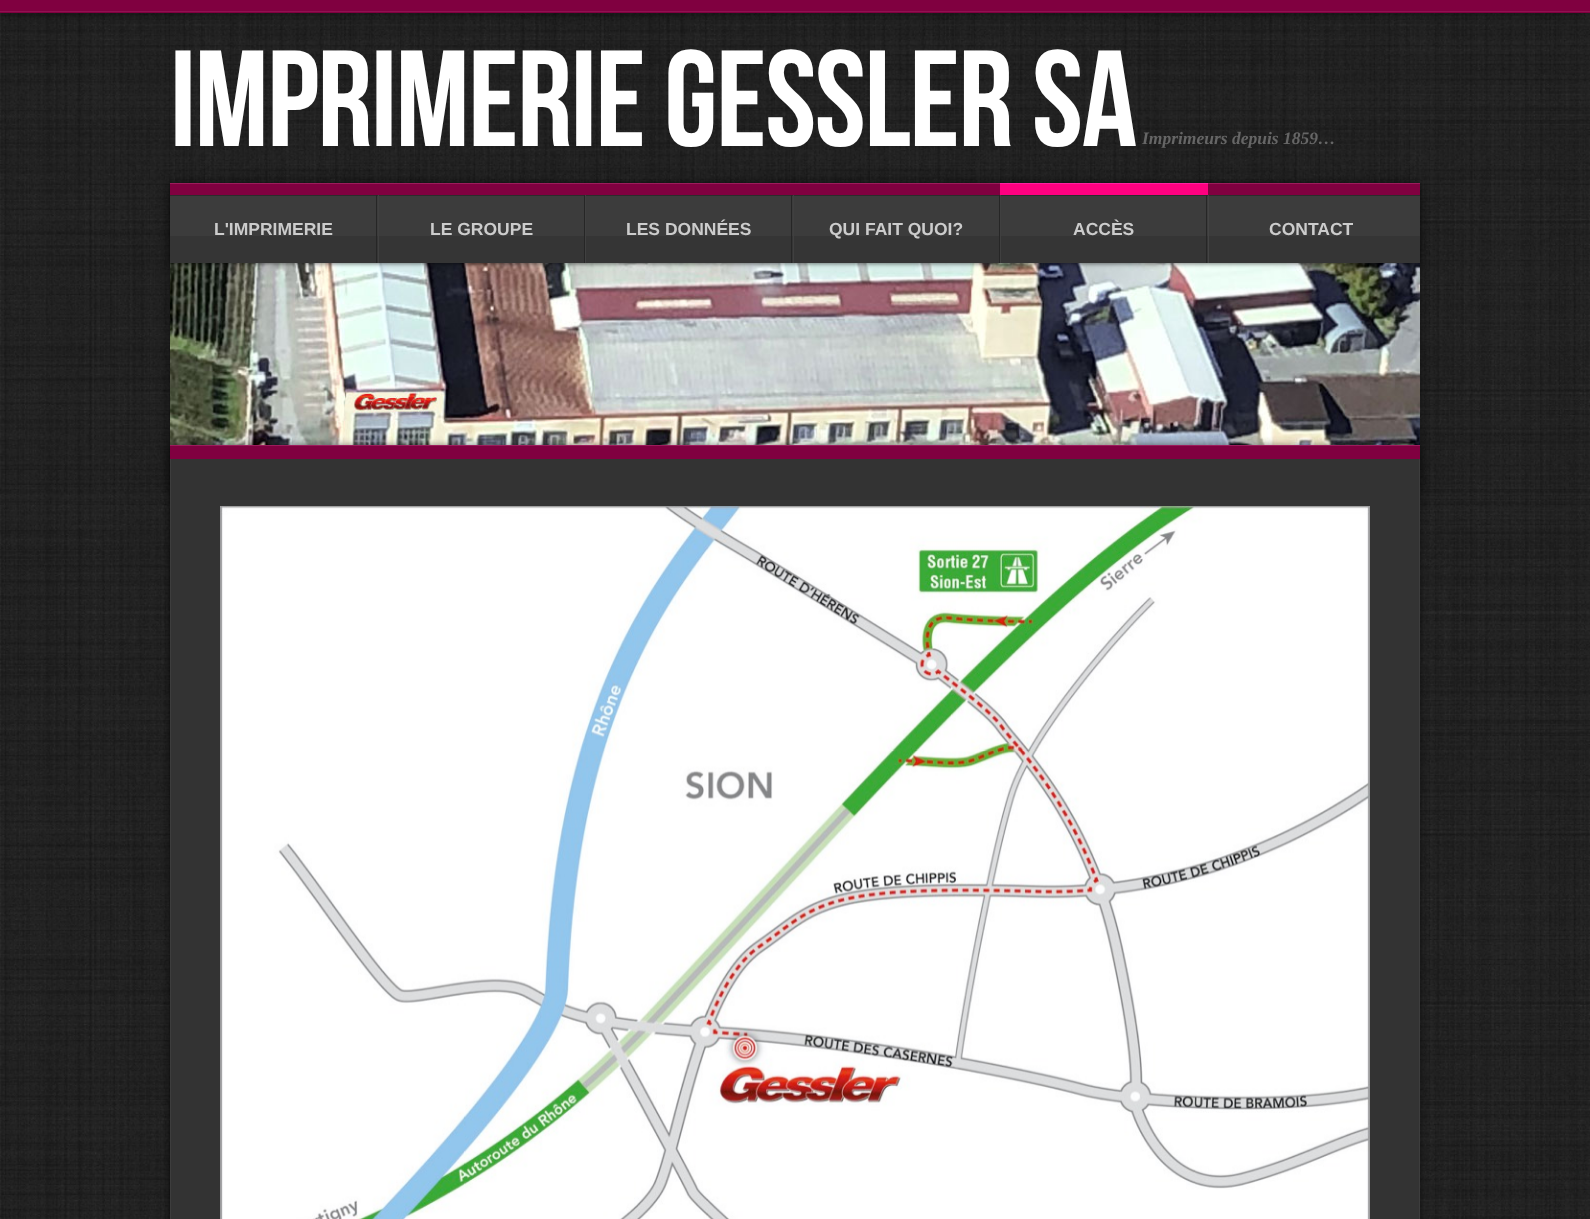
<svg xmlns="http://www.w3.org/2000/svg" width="1590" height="1219">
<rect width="100%" height="100%" fill="#fff"/>
<image x="0" y="13" width="1590" height="1206" href="media/1.png"/>
<rect width="1590" height="13" fill="#00000080" filter="blur(7.5px)"/>
<rect width="1590" height="13" fill="#800040"/>
<rect y="11" width="1590" height="1" fill="#911151"/>
<text x="170" y="146" style="font-family:Bebas Neue;font-size:136.5px;letter-spacing:-1.25px;fill:#fff">Imprimerie Gessler SA</text>
<text x="1142" y="144" style="font-family:Liberation Serif;font-size:17.5px;font-weight:bold;font-style:italic;fill:#666">Imprimeurs depuis 1859…</text>
<rect x="170" y="185" width="1250" height="306" fill="#00000080" filter="blur(7.5px)"/>
<image x="170" y="263" width="1250" height="182" href="media/2.png"/>
<rect x="170" y="184" width="1250" height="80" fill="#00000080" filter="blur(2px)"/>
<rect x="170" y="196" width="1250" height="40" fill="#3c3c3c"/>
<rect x="170" y="236" width="1250" height="27" fill="#353535"/>
<rect x="170" y="183" width="1250" height="1" fill="#9c1c5c"/>
<rect x="170" y="195" width="1250" height="1" fill="#2c2c2c"/>
<rect x="170" y="184" width="1250" height="11" fill="#800040"/>
<rect x="376" y="195" width="1" height="68" fill="#262626"/>
<text x="214" y="235" style="font-family:Liberation Sans;font-size:17.5px;font-weight:bold;fill:#ccc">L'IMPRIMERIE</text>
<rect x="378" y="195" width="1" height="68" fill="#404040"/>
<rect x="584" y="195" width="1" height="68" fill="#262626"/>
<text x="430" y="235" style="font-family:Liberation Sans;font-size:17.5px;font-weight:bold;fill:#ccc">LE GROUPE</text>
<rect x="585" y="195" width="1" height="68" fill="#404040"/>
<rect x="791" y="195" width="1" height="68" fill="#262626"/>
<text x="626" y="235" style="font-family:Liberation Sans;font-size:17.5px;font-weight:bold;fill:#ccc">LES DONNÉES</text>
<rect x="793" y="195" width="1" height="68" fill="#404040"/>
<rect x="999" y="195" width="1" height="68" fill="#262626"/>
<text x="829" y="235" style="font-family:Liberation Sans;font-size:17.5px;font-weight:bold;fill:#ccc">QUI FAIT QUOI?</text>
<rect x="1000" y="195" width="1" height="68" fill="#404040"/>
<rect x="1206" y="195" width="1" height="68" fill="#262626"/>
<rect x="1000" y="184" width="208" height="11" fill="#ff0080"/>
<rect x="1000" y="183" width="208" height="1" fill="#ff21a1"/>
<text x="1073" y="235" style="font-family:Liberation Sans;font-size:17.5px;font-weight:bold;fill:#ccc">ACCÈS</text>
<rect x="1208" y="195" width="1" height="68" fill="#444"/>
<text x="1269" y="235" style="font-family:Liberation Sans;font-size:17.5px;font-weight:bold;fill:#ccc">CONTACT</text>
<rect x="170" y="446" width="1250" height="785" fill="#00000099" filter="blur(4px)"/>
<rect x="171" y="459" width="1248" height="760" fill="#333"/>
<rect x="1419" y="459" width="1" height="760" fill="#3d3d3d"/>
<rect x="170" y="459" width="1" height="760" fill="#3d3d3d"/>
<image x="220" y="506" width="1150" height="713" href="media/3.png"/>
<rect x="170" y="446" width="1250" height="13" fill="#800040"/>
<rect x="170" y="445" width="1250" height="1" fill="#9c1c5c"/>
</svg>
